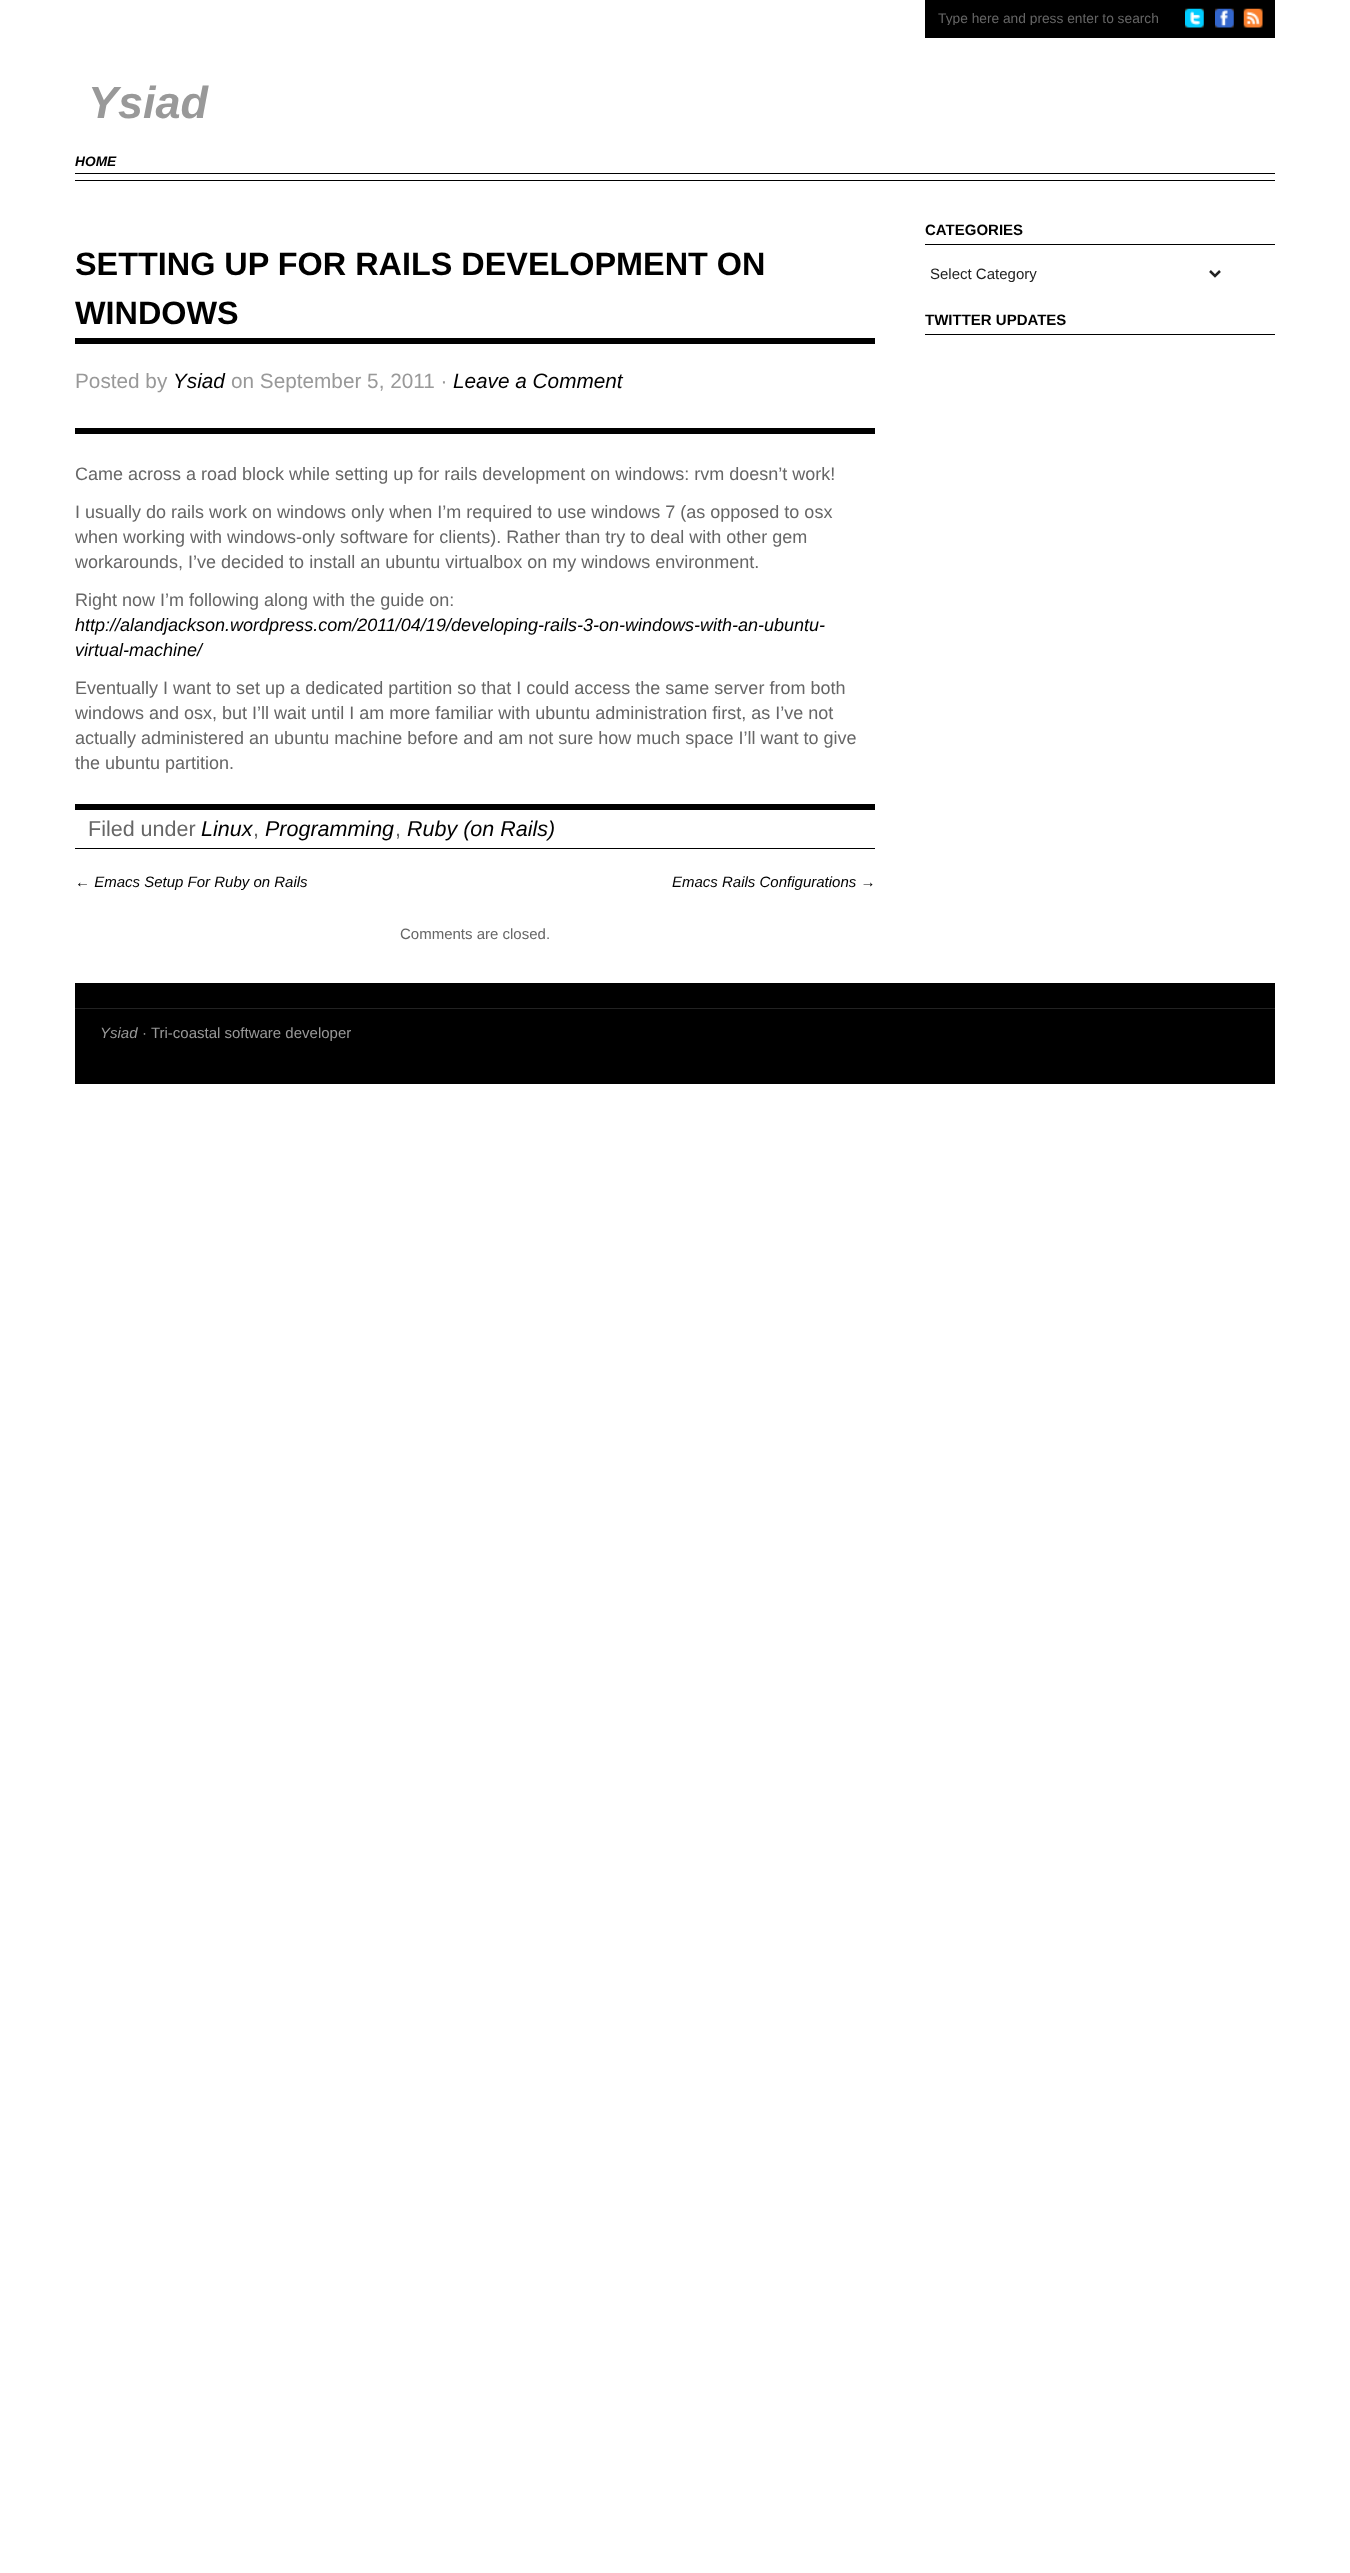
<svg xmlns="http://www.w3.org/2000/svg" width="1350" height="2573">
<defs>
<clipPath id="clip1"><rect x="938" y="10" width="225" height="15"/></clipPath>
</defs>
<rect width="100%" height="100%" fill="#fff"/>
<rect x="925" width="350" height="38" fill="#000"/>
<g clip-path="url(#clip1)">
<text x="938" y="23" style="font-family:Liberation Sans;font-size:13.75px;fill:#666">Type here and press enter to search</text>
</g>
<image x="1185" y="8" width="19" height="20" href="media/1.png"/>
<image x="1215" y="8" width="19" height="20" href="media/2.png"/>
<image x="1243" y="8" width="20" height="20" href="media/3.png"/>
<text x="88" y="118" style="font-family:Liberation Sans;font-size:45px;font-weight:bold;font-style:italic;fill:#999">Ysiad</text>
<rect x="75" y="173" width="1200" height="1" fill="#000"/>
<text x="75" y="166" style="font-family:Liberation Sans;font-size:13.75px;font-weight:bold;font-style:italic;fill:#000">HOME</text>
<rect x="75" y="180" width="1200" height="1" fill="#000"/>
<rect x="75" y="428" width="800" height="6" fill="#000"/>
<rect x="75" y="338" width="800" height="6" fill="#000"/>
<text x="75" y="275" style="font-family:Liberation Sans;font-size:32.4px;font-weight:bold;fill:#000">SETTING UP FOR RAILS DEVELOPMENT ON</text>
<text x="75" y="324" style="font-family:Liberation Sans;font-size:32.4px;font-weight:bold;fill:#000">WINDOWS</text>
<text x="75" y="388" style="font-family:Liberation Sans;font-size:20.75px;fill:#999">Posted by</text>
<text x="173" y="388" style="font-family:Liberation Sans;font-size:20.75px;font-style:italic;fill:#000">Ysiad</text>
<text x="231" y="388" style="font-family:Liberation Sans;font-size:20.75px;fill:#999">on September 5, 2011 ·</text>
<text x="453" y="388" style="font-family:Liberation Sans;font-size:20.75px;font-style:italic;fill:#000">Leave a Comment</text>
<text x="75" y="480" style="font-family:Liberation Sans;font-size:18px;fill:#666">Came across a road block while setting up for rails development on windows: rvm doesn’t work!</text>
<text x="75" y="518" style="font-family:Liberation Sans;font-size:18px;fill:#666">I usually do rails work on windows only when I’m required to use windows 7 (as opposed to osx</text>
<text x="75" y="543" style="font-family:Liberation Sans;font-size:18px;fill:#666">when working with windows-only software for clients). Rather than try to deal with other gem</text>
<text x="75" y="568" style="font-family:Liberation Sans;font-size:18px;fill:#666">workarounds, I’ve decided to install an ubuntu virtualbox on my windows environment.</text>
<text x="75" y="606" style="font-family:Liberation Sans;font-size:18px;fill:#666">Right now I’m following along with the guide on:</text>
<text x="75" y="631" style="font-family:Liberation Sans;font-size:18px;font-style:italic;fill:#000">http://alandjackson.wordpress.com/2011/04/19/developing-rails-3-on-windows-with-an-ubuntu-</text>
<text x="75" y="656" style="font-family:Liberation Sans;font-size:18px;font-style:italic;fill:#000">virtual-machine/</text>
<text x="75" y="694" style="font-family:Liberation Sans;font-size:18px;fill:#666">Eventually I want to set up a dedicated partition so that I could access the same server from both</text>
<text x="75" y="719" style="font-family:Liberation Sans;font-size:18px;fill:#666">windows and osx, but I’ll wait until I am more familiar with ubuntu administration first, as I’ve not</text>
<text x="75" y="744" style="font-family:Liberation Sans;font-size:18px;fill:#666">actually administered an ubuntu machine before and am not sure how much space I’ll want to give</text>
<text x="75" y="769" style="font-family:Liberation Sans;font-size:18px;fill:#666">the ubuntu partition.</text>
<rect x="75" y="804" width="800" height="6" fill="#000"/>
<rect x="75" y="848" width="800" height="1" fill="#000"/>
<text x="88" y="836" style="font-family:Liberation Sans;font-size:21.5px;fill:#666">Filed under</text>
<text x="201" y="836" style="font-family:Liberation Sans;font-size:21.5px;font-style:italic;fill:#000">Linux</text>
<text x="253" y="836" style="font-family:Liberation Sans;font-size:21.5px;fill:#666">,</text>
<text x="265" y="836" style="font-family:Liberation Sans;font-size:21.5px;font-style:italic;fill:#000">Programming</text>
<text x="395" y="836" style="font-family:Liberation Sans;font-size:21.5px;fill:#666">,</text>
<text x="407" y="836" style="font-family:Liberation Sans;font-size:21.5px;font-style:italic;fill:#000">Ruby (on Rails)</text>
<text x="75" y="887" style="font-family:Liberation Sans;font-size:15px;font-style:italic;fill:#000">← Emacs Setup For Ruby on Rails</text>
<text x="672" y="887" style="font-family:Liberation Sans;font-size:15px;font-style:italic;fill:#000">Emacs Rails Configurations →</text>
<text x="400" y="939" style="font-family:Liberation Sans;font-size:15px;fill:#666">Comments are closed.</text>
<rect x="925" y="244" width="350" height="1" fill="#000"/>
<text x="925" y="235" style="font-family:Liberation Sans;font-size:15px;font-weight:bold;fill:#000">CATEGORIES</text>
<path d="M1210 271l5 5l5-5" fill="none" stroke="#222" stroke-width="2.5"/>
<text x="930" y="279" style="font-family:Liberation Sans;font-size:15px;fill:#222">Select Category</text>
<rect x="925" y="334" width="350" height="1" fill="#000"/>
<text x="925" y="325" style="font-family:Liberation Sans;font-size:15px;font-weight:bold;fill:#000">TWITTER UPDATES</text>
<rect x="75" y="983" width="1200" height="25" fill="#000"/>
<rect x="75" y="1009" width="1200" height="75" fill="#000"/>
<rect x="75" y="1008" width="1200" height="1" fill="#222"/>
<text x="100" y="1038" style="font-family:Liberation Sans;font-size:15px;font-style:italic;fill:#999">Ysiad</text>
<text x="142" y="1038" style="font-family:Liberation Sans;font-size:15px;fill:#999">· Tri-coastal software developer</text>
</svg>
